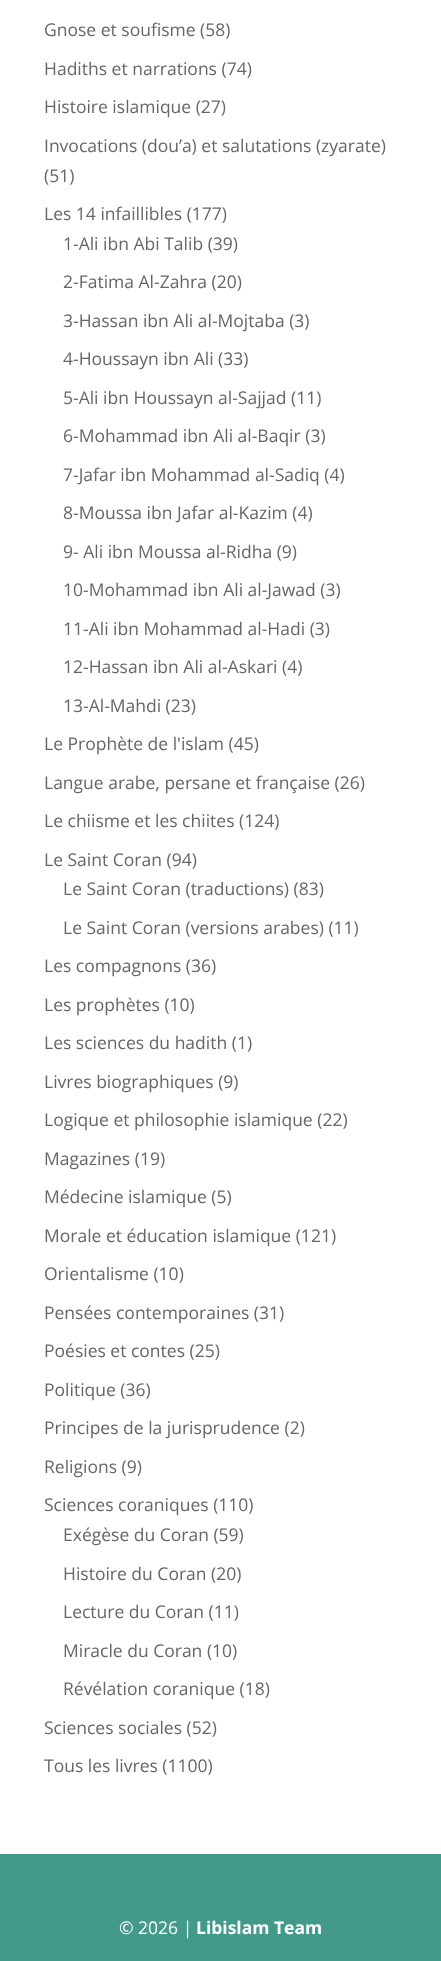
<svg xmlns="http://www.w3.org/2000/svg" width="441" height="1961">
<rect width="100%" height="100%" fill="#fff"/>
<text x="44" y="36" style="font-family:Open Sans;font-size:17.5px;fill:#666">Gnose et soufisme (58)</text>
<text x="44" y="75" style="font-family:Open Sans;font-size:17.5px;fill:#666">Hadiths et narrations (74)</text>
<text x="44" y="113" style="font-family:Open Sans;font-size:17.5px;fill:#666">Histoire islamique (27)</text>
<text x="44" y="152" style="font-family:Open Sans;font-size:17.5px;fill:#666">Invocations (dou’a) et salutations (zyarate)</text>
<text x="44" y="182" style="font-family:Open Sans;font-size:17.5px;fill:#666">(51)</text>
<text x="44" y="220" style="font-family:Open Sans;font-size:17.5px;fill:#666">Les 14 infaillibles (177)</text>
<text x="63" y="250" style="font-family:Open Sans;font-size:17.5px;fill:#666">1-Ali ibn Abi Talib (39)</text>
<text x="63" y="288" style="font-family:Open Sans;font-size:17.5px;fill:#666">2-Fatima Al-Zahra (20)</text>
<text x="63" y="327" style="font-family:Open Sans;font-size:17.5px;fill:#666">3-Hassan ibn Ali al-Mojtaba (3)</text>
<text x="63" y="365" style="font-family:Open Sans;font-size:17.5px;fill:#666">4-Houssayn ibn Ali (33)</text>
<text x="63" y="404" style="font-family:Open Sans;font-size:17.5px;fill:#666">5-Ali ibn Houssayn al-Sajjad (11)</text>
<text x="63" y="442" style="font-family:Open Sans;font-size:17.5px;fill:#666">6-Mohammad ibn Ali al-Baqir (3)</text>
<text x="63" y="481" style="font-family:Open Sans;font-size:17.5px;fill:#666">7-Jafar ibn Mohammad al-Sadiq (4)</text>
<text x="63" y="519" style="font-family:Open Sans;font-size:17.5px;fill:#666">8-Moussa ibn Jafar al-Kazim (4)</text>
<text x="63" y="558" style="font-family:Open Sans;font-size:17.5px;fill:#666">9- Ali ibn Moussa al-Ridha (9)</text>
<text x="63" y="596" style="font-family:Open Sans;font-size:17.5px;fill:#666">10-Mohammad ibn Ali al-Jawad (3)</text>
<text x="63" y="635" style="font-family:Open Sans;font-size:17.5px;fill:#666">11-Ali ibn Mohammad al-Hadi (3)</text>
<text x="63" y="673" style="font-family:Open Sans;font-size:17.5px;fill:#666">12-Hassan ibn Ali al-Askari (4)</text>
<text x="63" y="712" style="font-family:Open Sans;font-size:17.5px;fill:#666">13-Al-Mahdi (23)</text>
<text x="44" y="750" style="font-family:Open Sans;font-size:17.5px;fill:#666">Le Prophète de l'islam (45)</text>
<text x="44" y="789" style="font-family:Open Sans;font-size:17.5px;fill:#666">Langue arabe, persane et française (26)</text>
<text x="44" y="827" style="font-family:Open Sans;font-size:17.5px;fill:#666">Le chiisme et les chiites (124)</text>
<text x="44" y="866" style="font-family:Open Sans;font-size:17.5px;fill:#666">Le Saint Coran (94)</text>
<text x="63" y="895" style="font-family:Open Sans;font-size:17.5px;fill:#666">Le Saint Coran (traductions) (83)</text>
<text x="63" y="934" style="font-family:Open Sans;font-size:17.5px;fill:#666">Le Saint Coran (versions arabes) (11)</text>
<text x="44" y="972" style="font-family:Open Sans;font-size:17.5px;fill:#666">Les compagnons (36)</text>
<text x="44" y="1011" style="font-family:Open Sans;font-size:17.5px;fill:#666">Les prophètes (10)</text>
<text x="44" y="1049" style="font-family:Open Sans;font-size:17.5px;fill:#666">Les sciences du hadith (1)</text>
<text x="44" y="1088" style="font-family:Open Sans;font-size:17.5px;fill:#666">Livres biographiques (9)</text>
<text x="44" y="1126" style="font-family:Open Sans;font-size:17.5px;fill:#666">Logique et philosophie islamique (22)</text>
<text x="44" y="1165" style="font-family:Open Sans;font-size:17.5px;fill:#666">Magazines (19)</text>
<text x="44" y="1203" style="font-family:Open Sans;font-size:17.5px;fill:#666">Médecine islamique (5)</text>
<text x="44" y="1242" style="font-family:Open Sans;font-size:17.5px;fill:#666">Morale et éducation islamique (121)</text>
<text x="44" y="1280" style="font-family:Open Sans;font-size:17.5px;fill:#666">Orientalisme (10)</text>
<text x="44" y="1319" style="font-family:Open Sans;font-size:17.5px;fill:#666">Pensées contemporaines (31)</text>
<text x="44" y="1357" style="font-family:Open Sans;font-size:17.5px;fill:#666">Poésies et contes (25)</text>
<text x="44" y="1396" style="font-family:Open Sans;font-size:17.5px;fill:#666">Politique (36)</text>
<text x="44" y="1434" style="font-family:Open Sans;font-size:17.5px;fill:#666">Principes de la jurisprudence (2)</text>
<text x="44" y="1473" style="font-family:Open Sans;font-size:17.5px;fill:#666">Religions (9)</text>
<text x="44" y="1511" style="font-family:Open Sans;font-size:17.5px;fill:#666">Sciences coraniques (110)</text>
<text x="63" y="1541" style="font-family:Open Sans;font-size:17.5px;fill:#666">Exégèse du Coran (59)</text>
<text x="63" y="1580" style="font-family:Open Sans;font-size:17.5px;fill:#666">Histoire du Coran (20)</text>
<text x="63" y="1618" style="font-family:Open Sans;font-size:17.5px;fill:#666">Lecture du Coran (11)</text>
<text x="63" y="1657" style="font-family:Open Sans;font-size:17.5px;fill:#666">Miracle du Coran (10)</text>
<text x="63" y="1695" style="font-family:Open Sans;font-size:17.5px;fill:#666">Révélation coranique (18)</text>
<text x="44" y="1734" style="font-family:Open Sans;font-size:17.5px;fill:#666">Sciences sociales (52)</text>
<text x="44" y="1772" style="font-family:Open Sans;font-size:17.5px;fill:#666">Tous les livres (1100)</text>
<rect y="1854" width="441" height="107" fill="#449a8a"/>
<text x="119" y="1934" style="font-family:Open Sans;font-size:17.5px;fill:#fff">© 2026 |</text>
<text x="196" y="1934" style="font-family:Open Sans;font-size:17.5px;font-weight:bold;fill:#fff">Libislam Team</text>
</svg>
